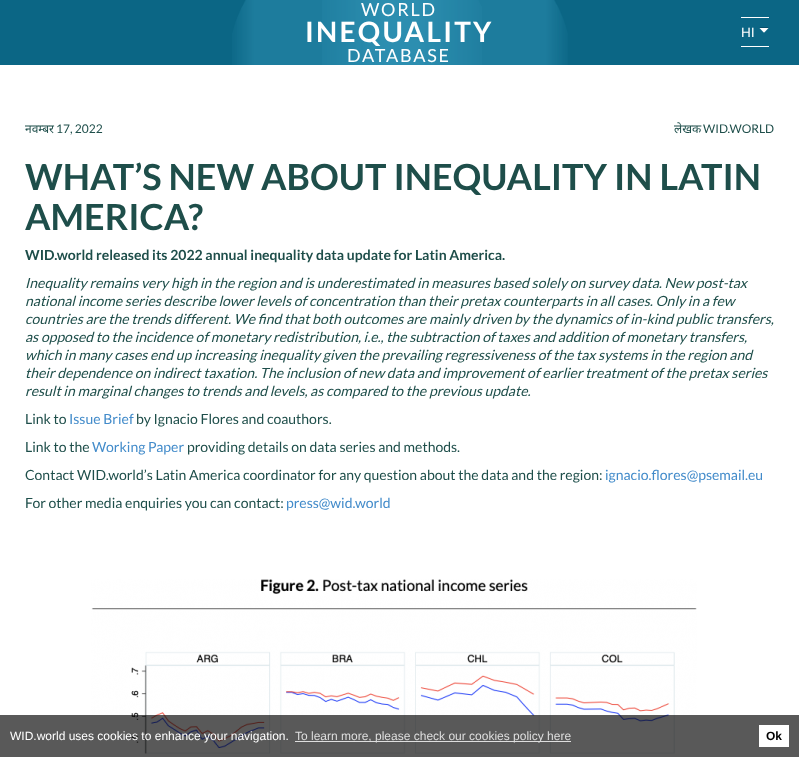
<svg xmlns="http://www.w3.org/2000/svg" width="799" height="757">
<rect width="100%" height="100%" fill="#fff"/>
<rect width="799" height="65" fill="#0b6685"/>
<image x="232" y="0" width="250" height="65" href="media/1.png"/>
<image x="322" y="0" width="246" height="65" href="media/2.png"/>
<text x="361" y="16" style="font-family:Lato;font-size:18px;letter-spacing:1.75px;fill:#fff">WORLD</text>
<text x="305" y="42" style="font-family:Lato;font-size:28px;font-weight:bold;letter-spacing:2.25px;fill:#fff">INEQUALITY</text>
<text x="347" y="62" style="font-family:Lato;font-size:18px;letter-spacing:1.75px;fill:#fff">DATABASE</text>
<rect x="741" y="17" width="28" height="1" fill="#fff"/>
<rect x="741" y="46" width="28" height="1" fill="#fff"/>
<text x="741" y="37" style="font-family:Lato;font-size:13px;fill:#fff">HI</text>
<image x="759" y="27" width="10" height="6" href="media/3.png"/>
<text x="25" y="133" style="font-family:Noto Sans;font-size:12px;fill:#1e4e4a">नवम्बर</text>
<text x="56" y="133" style="font-family:Lato;font-size:12px;fill:#1e4e4a">17, 2022</text>
<text x="674" y="133" style="font-family:Noto Sans;font-size:12px;fill:#1e4e4a">लेखक</text>
<text x="703" y="133" style="font-family:Lato;font-size:12px;fill:#1e4e4a">WID.WORLD</text>
<text x="25" y="190" style="font-family:Lato;font-size:36px;font-weight:bold;fill:#1e4e4a">WHAT’S NEW ABOUT INEQUALITY IN LATIN</text>
<text x="25" y="230" style="font-family:Lato;font-size:36px;font-weight:bold;fill:#1e4e4a">AMERICA?</text>
<text x="25" y="260" style="font-family:Lato;font-size:14px;font-weight:bold;fill:#1e4e4a">WID.world released its 2022 annual inequality data update for Latin America.</text>
<text x="25" y="288" style="font-family:Lato;font-size:14px;font-style:italic;fill:#1e4e4a">Inequality remains very high in the region and is underestimated in measures based solely on survey data. New post-tax</text>
<text x="25" y="306" style="font-family:Lato;font-size:14px;font-style:italic;fill:#1e4e4a">national income series describe lower levels of concentration than their pretax counterparts in all cases. Only in a few</text>
<text x="25" y="324" style="font-family:Lato;font-size:14px;font-style:italic;fill:#1e4e4a">countries are the trends different. We find that both outcomes are mainly driven by the dynamics of in-kind public transfers,</text>
<text x="25" y="342" style="font-family:Lato;font-size:14px;font-style:italic;fill:#1e4e4a">as opposed to the incidence of monetary redistribution, i.e., the subtraction of taxes and addition of monetary transfers,</text>
<text x="25" y="360" style="font-family:Lato;font-size:14px;font-style:italic;fill:#1e4e4a">which in many cases end up increasing inequality given the prevailing regressiveness of the tax systems in the region and</text>
<text x="25" y="378" style="font-family:Lato;font-size:14px;font-style:italic;fill:#1e4e4a">their dependence on indirect taxation. The inclusion of new data and improvement of earlier treatment of the pretax series</text>
<text x="25" y="396" style="font-family:Lato;font-size:14px;font-style:italic;fill:#1e4e4a">result in marginal changes to trends and levels, as compared to the previous update.</text>
<text x="25" y="424" style="font-family:Lato;font-size:14px;fill:#1e4e4a">Link to</text>
<text x="69" y="424" style="font-family:Lato;font-size:14px;fill:#428bca">Issue Brief</text>
<text x="136" y="424" style="font-family:Lato;font-size:14px;fill:#1e4e4a">by Ignacio Flores and coauthors.</text>
<text x="25" y="452" style="font-family:Lato;font-size:14px;fill:#1e4e4a">Link to the</text>
<text x="92" y="452" style="font-family:Lato;font-size:14px;fill:#428bca">Working Paper</text>
<text x="187" y="452" style="font-family:Lato;font-size:14px;fill:#1e4e4a">providing details on data series and methods.</text>
<text x="25" y="480" style="font-family:Lato;font-size:14px;fill:#1e4e4a">Contact WID.world’s Latin America coordinator for any question about the data and the region:</text>
<text x="605" y="480" style="font-family:Lato;font-size:14px;fill:#428bca">ignacio.flores@psemail.eu</text>
<text x="25" y="508" style="font-family:Lato;font-size:14px;fill:#1e4e4a">For other media enquiries you can contact:</text>
<text x="286" y="508" style="font-family:Lato;font-size:14px;fill:#428bca">press@wid.world</text>
<image x="91" y="579" width="606" height="175" href="media/4.png"/>
<rect y="715" width="799" height="42" fill="#000000a6"/>
<text x="10" y="740" style="font-family:Liberation Sans;font-size:12px;fill:#fff">WID.world uses cookies to enhance your navigation.</text>
<rect x="295" y="741" width="276" height="1" fill="#ffffffcc"/>
<text x="295" y="740" style="font-family:Liberation Sans;font-size:12px;fill:#dedede">To learn more, please check our cookies policy here</text>
<rect x="759" y="725" width="30" height="22" fill="#fff"/>
<text x="766" y="740" style="font-family:Liberation Sans;font-size:12px;font-weight:bold;fill:#000">Ok</text>
</svg>
